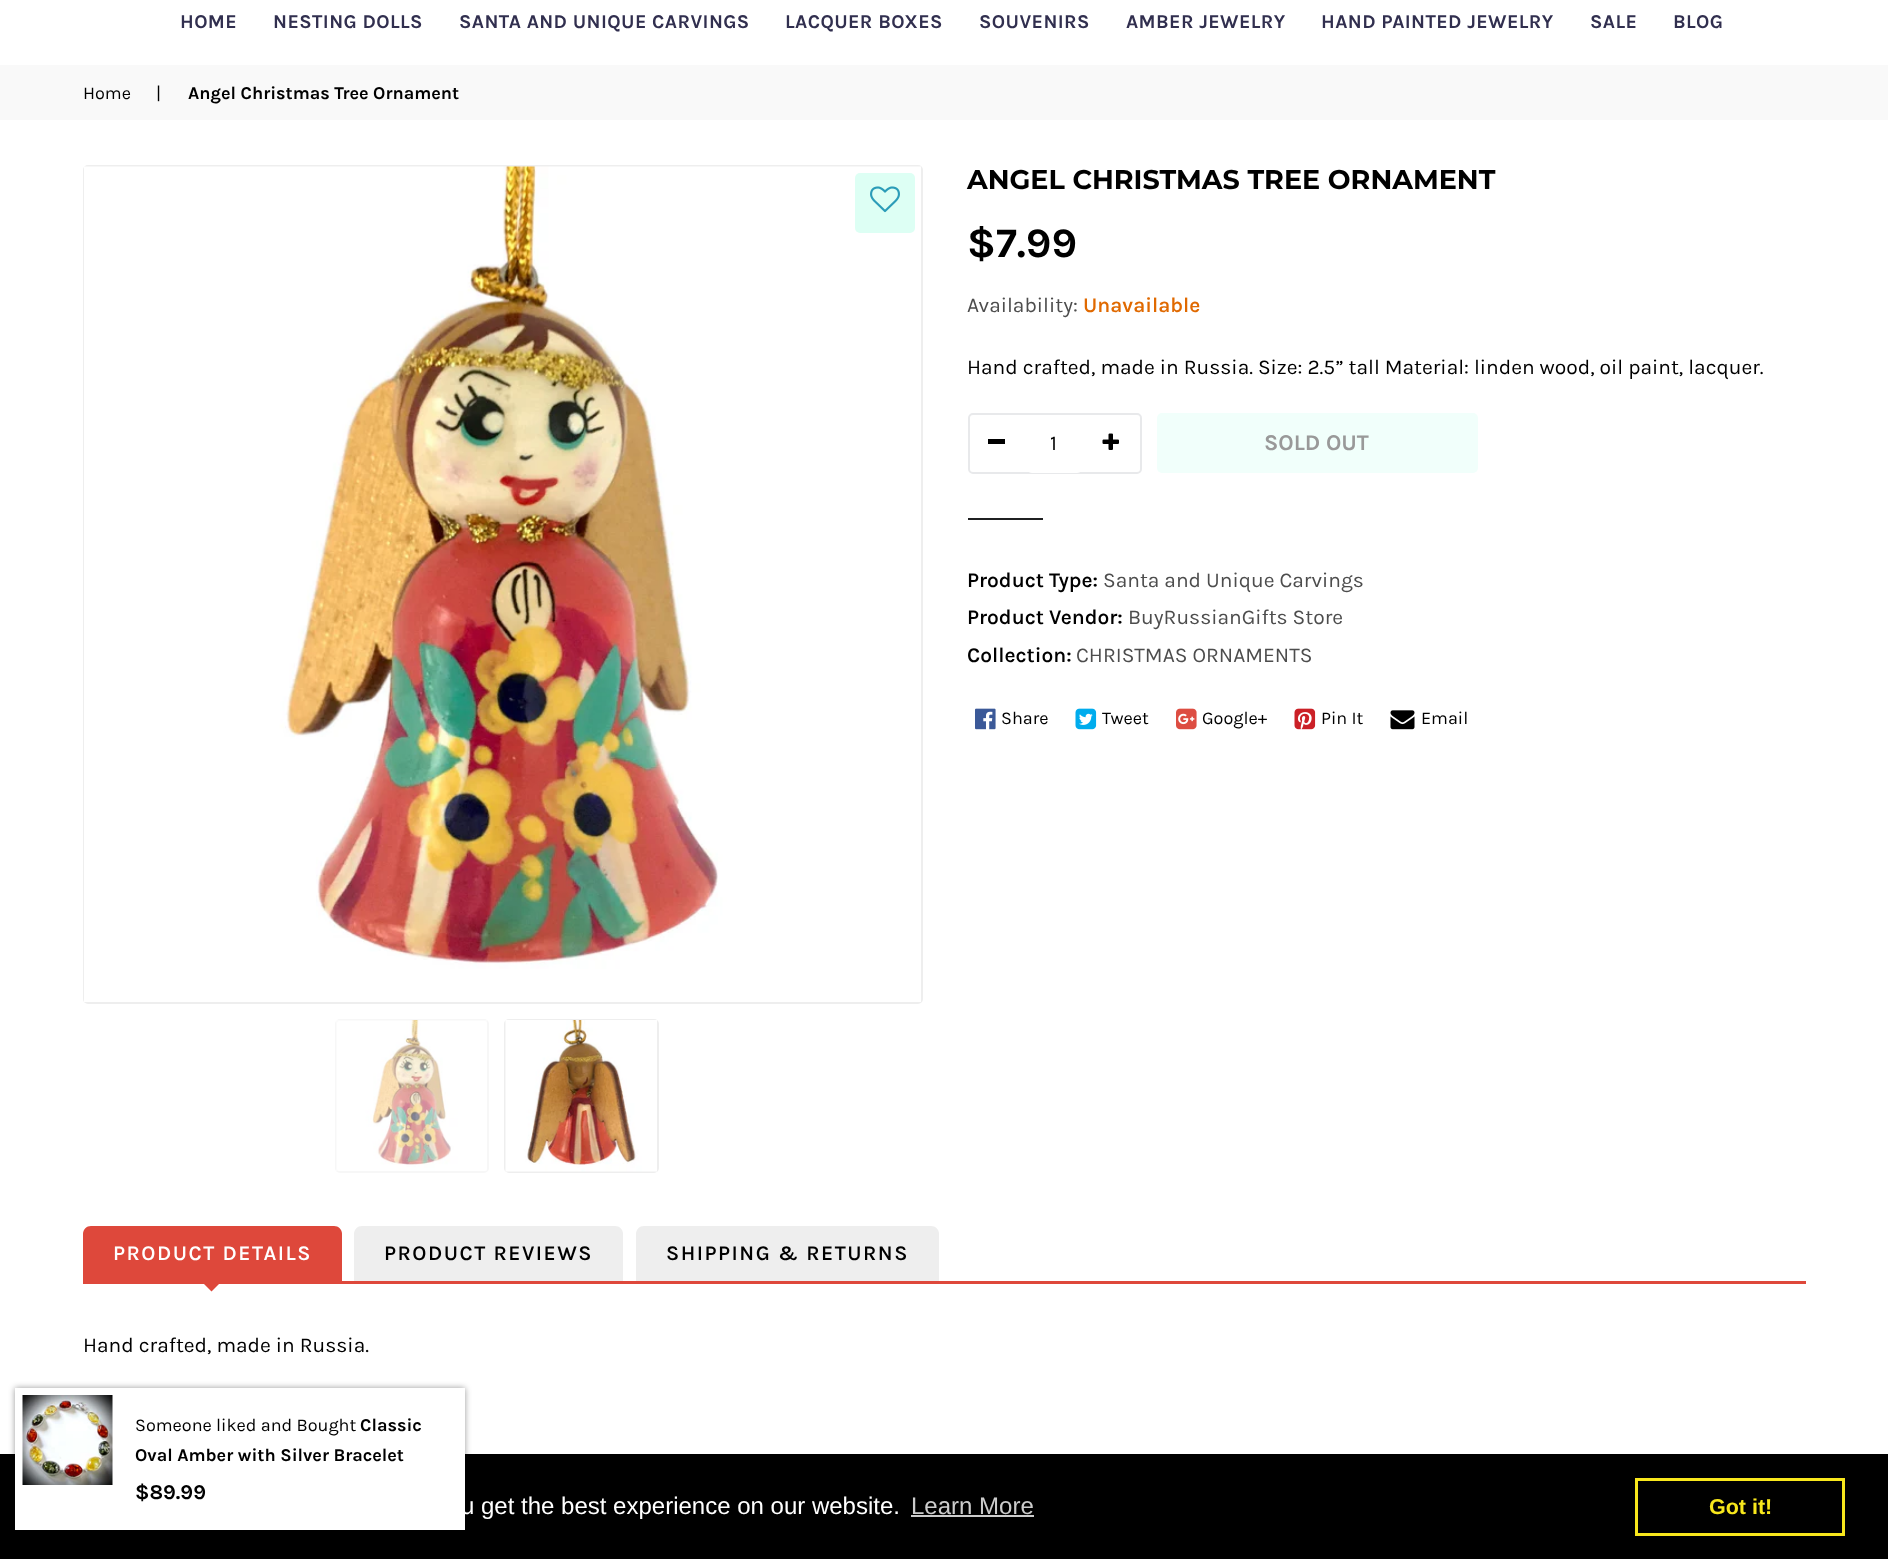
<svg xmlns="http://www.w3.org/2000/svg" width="1888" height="1559">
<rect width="100%" height="100%" fill="#fff"/>
<text x="180" y="28" style="font-family:Karla;font-size:19.5px;font-weight:bold;letter-spacing:0.4px;fill:#312f4f">HOME</text>
<text x="273" y="28" style="font-family:Karla;font-size:19.5px;font-weight:bold;letter-spacing:0.4px;fill:#312f4f">NESTING DOLLS</text>
<text x="459" y="28" style="font-family:Karla;font-size:19.5px;font-weight:bold;letter-spacing:0.4px;fill:#312f4f">SANTA AND UNIQUE CARVINGS</text>
<text x="785" y="28" style="font-family:Karla;font-size:19.5px;font-weight:bold;letter-spacing:0.4px;fill:#312f4f">LACQUER BOXES</text>
<text x="979" y="28" style="font-family:Karla;font-size:19.5px;font-weight:bold;letter-spacing:0.4px;fill:#312f4f">SOUVENIRS</text>
<text x="1126" y="28" style="font-family:Karla;font-size:19.5px;font-weight:bold;letter-spacing:0.4px;fill:#312f4f">AMBER JEWELRY</text>
<text x="1321" y="28" style="font-family:Karla;font-size:19.5px;font-weight:bold;letter-spacing:0.4px;fill:#312f4f">HAND PAINTED JEWELRY</text>
<text x="1590" y="28" style="font-family:Karla;font-size:19.5px;font-weight:bold;letter-spacing:0.4px;fill:#312f4f">SALE</text>
<text x="1673" y="28" style="font-family:Karla;font-size:19.5px;font-weight:bold;letter-spacing:0.4px;fill:#312f4f">BLOG</text>
<rect y="65" width="1888" height="55" fill="#f9f9f9"/>
<text x="83" y="99" style="font-family:Karla;font-size:18px;fill:#000">Home</text>
<text x="156" y="99" style="font-family:Karla;font-size:18px;fill:#000">|</text>
<text x="188" y="99" style="font-family:Karla;font-size:18px;font-weight:bold;fill:#000">Angel Christmas Tree Ornament</text>
<rect x="84" y="166" width="838" height="837" rx="4" fill="none" stroke="#eee" stroke-width="2"/>
<image x="84" y="166" width="837" height="836" href="media/1.png"/>
<rect x="855" y="173" width="60" height="60" rx="5" fill="#ddfff4"/>
<image x="870" y="186" width="30" height="27" href="media/2.png"/>
<rect x="336" y="1020" width="152" height="152" rx="4" fill="none" stroke="#f7f7f7" stroke-width="2"/>
<image x="336" y="1020" width="151" height="151" href="media/3.png"/>
<rect x="505" y="1020" width="153" height="152" rx="4" fill="none" stroke="#eee" stroke-width="2"/>
<image x="505" y="1020" width="152" height="152" href="media/4.png"/>
<text x="967" y="189" style="font-family:Montserrat;font-size:27px;font-weight:bold;fill:#000">ANGEL CHRISTMAS TREE ORNAMENT</text>
<text x="967" y="257" style="font-family:Karla;font-size:42px;font-weight:bold;fill:#000">$7.99</text>
<text x="967" y="312" style="font-family:Karla;font-size:21px;fill:#4d4d4d">Availability:</text>
<text x="1083" y="312" style="font-family:Karla;font-size:21px;font-weight:600;fill:#e06900">Unavailable</text>
<text x="967" y="374" style="font-family:Karla;font-size:21px;fill:#000">Hand crafted, made in Russia. Size: 2.5” tall Material: linden wood, oil paint, lacquer.</text>
<rect x="969" y="414" width="172" height="59" rx="4" fill="none" stroke="#e8e9eb" stroke-width="2"/>
<rect x="988" y="439" width="17" height="5" fill="#000"/>
<rect x="1026" y="416" width="57" height="57" rx="6" fill="#fff"/>
<text x="1050" y="450" style="font-family:Karla;font-size:21px;fill:#000">1</text>
<image x="1102" y="433" width="17" height="17" href="media/5.png"/>
<rect x="1157" y="413" width="321" height="60" rx="5" fill="#f1fffb"/>
<text x="1264" y="450" style="font-family:Karla;font-size:22.5px;font-weight:bold;fill:#999">SOLD OUT</text>
<rect x="968" y="518" width="75" height="2" fill="#1f2021"/>
<text x="967" y="587" style="font-family:Karla;font-size:21px;font-weight:600;fill:#000">Product Type:</text>
<text x="1103" y="587" style="font-family:Karla;font-size:21px;fill:#4d4d4d">Santa and Unique Carvings</text>
<text x="967" y="624" style="font-family:Karla;font-size:21px;font-weight:600;fill:#000">Product Vendor:</text>
<text x="1128" y="624" style="font-family:Karla;font-size:21px;fill:#4d4d4d">BuyRussianGifts Store</text>
<text x="967" y="662" style="font-family:Karla;font-size:21px;font-weight:600;fill:#000">Collection:</text>
<text x="1076" y="662" style="font-family:Karla;font-size:21px;fill:#4d4d4d">CHRISTMAS ORNAMENTS</text>
<image x="975" y="708" width="21" height="22" href="media/6.png"/>
<text x="1001" y="724" style="font-family:Karla;font-size:18px;fill:#000">Share</text>
<image x="1075" y="708" width="22" height="22" href="media/7.png"/>
<text x="1102" y="724" style="font-family:Karla;font-size:18px;fill:#000">Tweet</text>
<image x="1176" y="708" width="21" height="22" href="media/8.png"/>
<text x="1202" y="724" style="font-family:Karla;font-size:18px;fill:#000">Google+</text>
<image x="1294" y="708" width="22" height="22" href="media/9.png"/>
<text x="1321" y="724" style="font-family:Karla;font-size:18px;fill:#000">Pin It</text>
<image x="1390" y="710" width="25" height="20" href="media/10.png"/>
<text x="1421" y="724" style="font-family:Karla;font-size:18px;fill:#000">Email</text>
<rect x="83" y="1281" width="1723" height="3" fill="#de483b"/>
<path d="M91 1226h243c4.5 0 8 3.5 8 8v47h-259v-47c0-4.5 3.5-8 8-8z" fill="#de483b"/>
<text x="113" y="1260" style="font-family:Karla;font-size:21px;font-weight:600;letter-spacing:1.5px;fill:#fff">PRODUCT DETAILS</text>
<path d="M201 1281h21l-10.5 10.5z" fill="#de483b"/>
<path d="M362 1226h253c4.5 0 8 3.5 8 8v47h-269v-47c0-4.5 3.5-8 8-8z" fill="#eee"/>
<text x="384" y="1260" style="font-family:Karla;font-size:21px;font-weight:600;letter-spacing:1.5px;fill:#000">PRODUCT REVIEWS</text>
<path d="M644 1226h287c4.5 0 8 3.5 8 8v47h-303v-47c0-4.5 3.5-8 8-8z" fill="#eee"/>
<text x="666" y="1260" style="font-family:Karla;font-size:21px;font-weight:600;letter-spacing:1.5px;fill:#000">SHIPPING &amp; RETURNS</text>
<text x="83" y="1352" style="font-family:Karla;font-size:21px;fill:#000">Hand crafted, made in Russia.</text>
<rect y="1454" width="1888" height="105" fill="#000"/>
<rect x="15" y="1388" width="450" height="142" fill="#00000066" filter="blur(3px)"/>
<rect x="15" y="1388" width="450" height="142" fill="#fff"/>
<image x="22" y="1395" width="91" height="90" href="media/11.png"/>
<text x="135" y="1431" style="font-family:Karla;font-size:18px;fill:#000">Someone liked and Bought</text>
<text x="360" y="1431" style="font-family:Karla;font-size:18px;font-weight:bold;fill:#000">Classic</text>
<text x="135" y="1461" style="font-family:Karla;font-size:18px;font-weight:bold;fill:#000">Oval Amber with Silver Bracelet</text>
<text x="135" y="1499" style="font-family:Karla;font-size:21px;font-weight:bold;fill:#000">$89.99</text>
<text x="461" y="1514" style="font-family:Liberation Sans;font-size:24px;fill:#fff">u get the best experience on our website.</text>
<text x="911" y="1514" style="font-family:Liberation Sans;font-size:24px;fill:#ccc">Learn More</text>
<rect x="911" y="1515" width="123" height="2" fill="#ccc"/>
<rect x="1636.5" y="1479.5" width="207" height="55" fill="none" stroke="#f8e71c" stroke-width="3"/>
<text x="1709" y="1514" style="font-family:Liberation Sans;font-size:21.5px;font-weight:bold;fill:#f8e71c">Got it!</text>
</svg>
